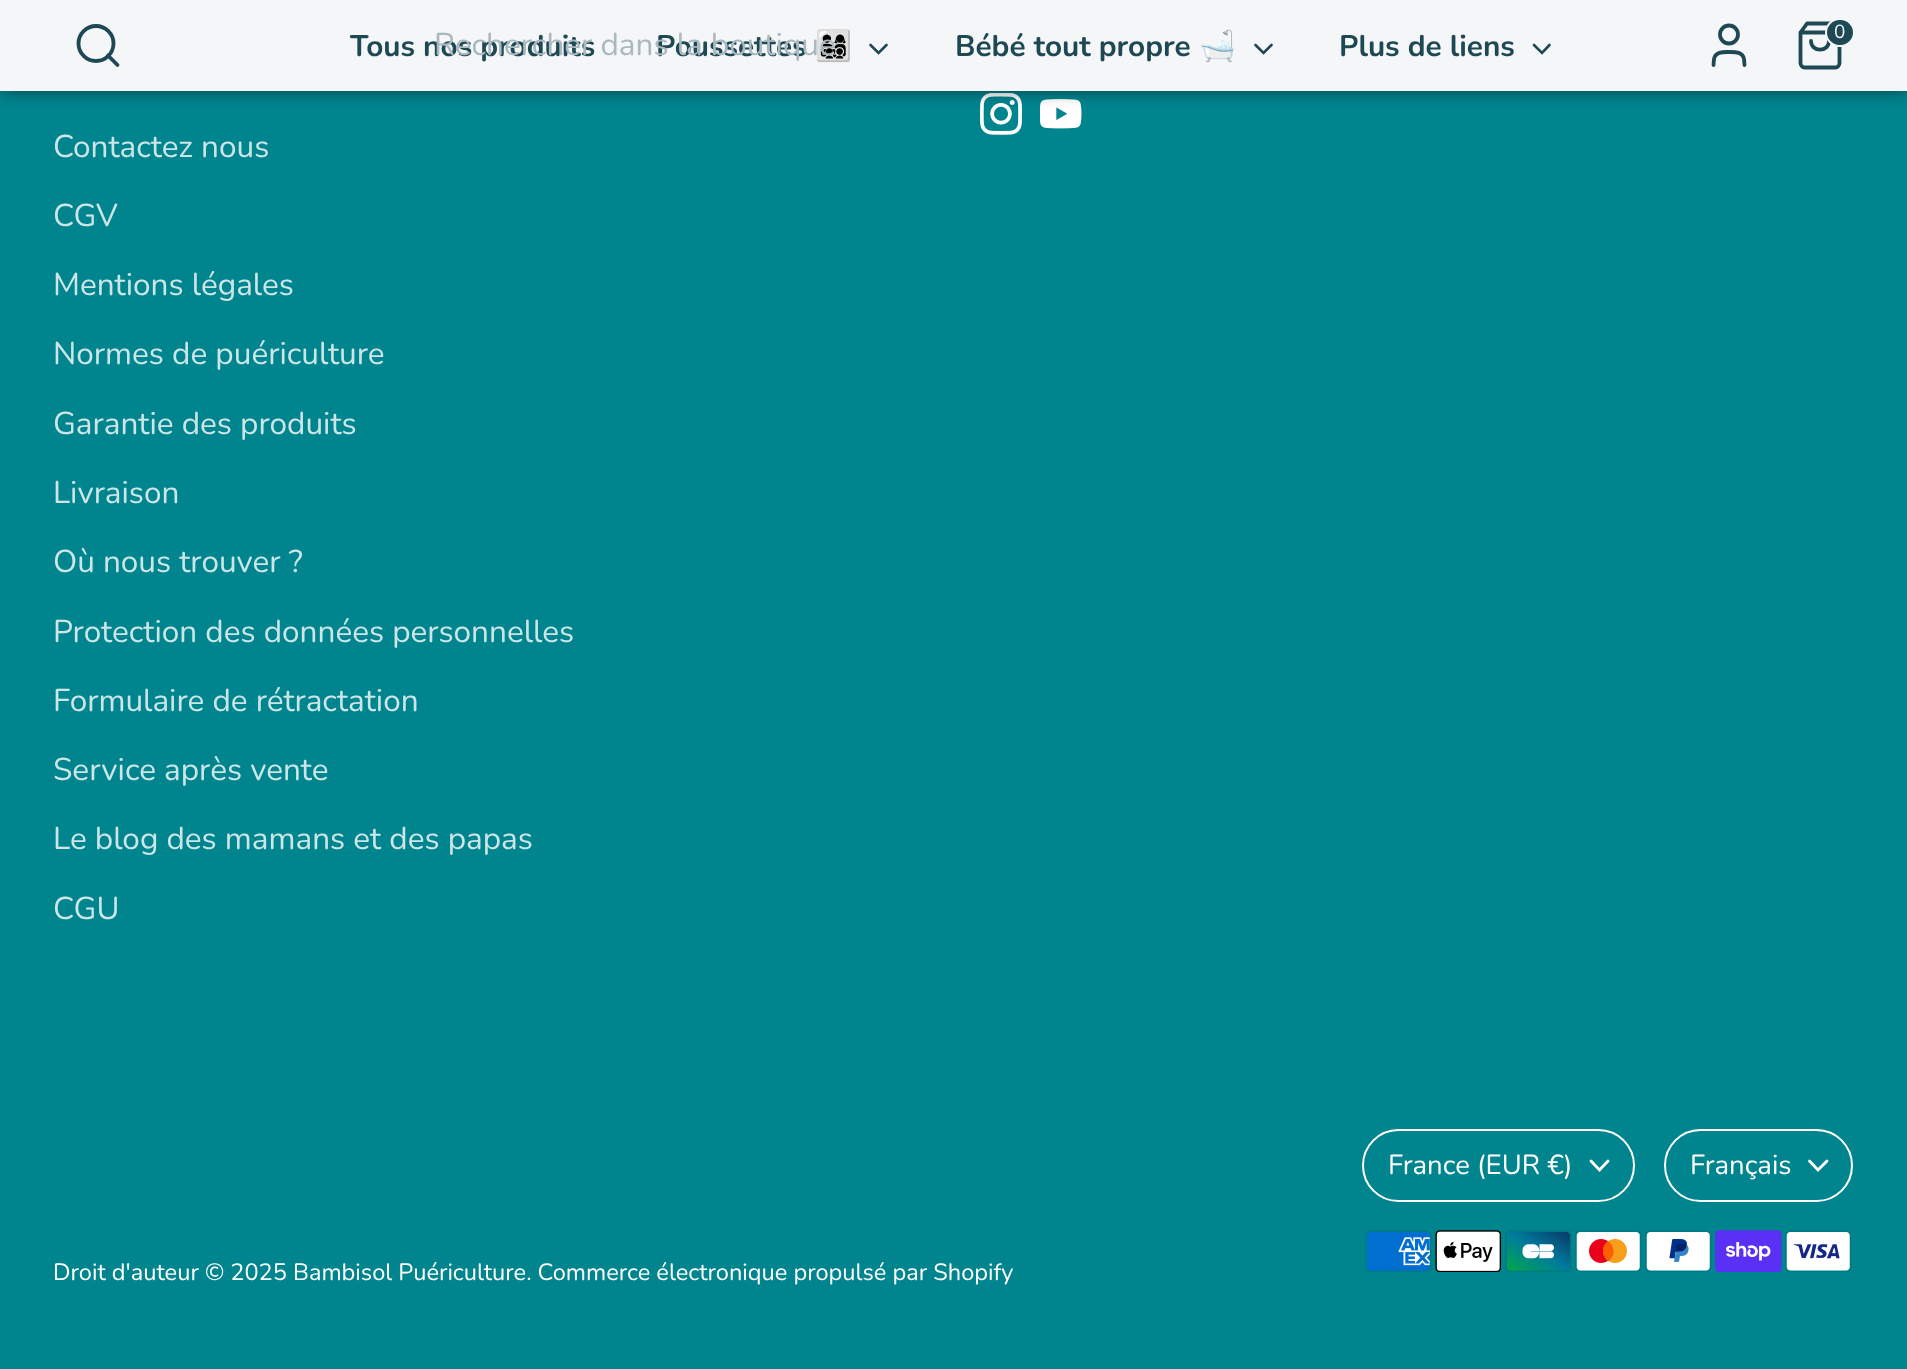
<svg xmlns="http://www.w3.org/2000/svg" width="1907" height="1369">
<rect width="100%" height="100%" fill="#00848e"/>
<image x="980" y="93" width="42" height="42" href="media/1.png"/>
<image x="1040" y="99" width="42" height="30" href="media/2.png"/>
<rect y="-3" width="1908" height="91" fill="#000000bf" filter="blur(9px)"/>
<rect width="1907" height="91" fill="#f4f6f8"/>
<circle cx="96" cy="43.5" r="17.5" fill="none" stroke="#1e4854" stroke-width="3.8"/>
<path d="M117.5 65l-9.5-9.5" fill="none" stroke="#1e4854" stroke-width="3.8" stroke-linecap="round" stroke-linejoin="round"/>
<text x="350" y="56" style="font-family:Nunito;font-size:29.75px;font-weight:bold;fill:#1e4854">Tous nos produits</text>
<text x="656" y="56" style="font-family:Nunito;font-size:29.75px;font-weight:bold;fill:#1e4854">Poussettes</text>
<text x="815" y="56" style="font-family:Noto Color Emoji;font-size:29.75px;font-weight:bold;fill:#1e4854">👨‍👩‍👧‍👦</text>
<text x="434" y="55" style="font-family:Nunito;font-size:31.5px;fill:#a9b9bf">Rechercher dans la boutique</text>
<path d="M1744.5 65l-.5-6c-1.5-7.5-9-7-15-7c-6 0-13.5-.5-15 7l-.5 6" fill="none" stroke="#1e4854" stroke-width="3.8" stroke-linecap="round" stroke-linejoin="round"/>
<circle cx="1729" cy="34.5" r="9" fill="none" stroke="#1e4854" stroke-width="3.8"/>
<path d="M1807 23.5l-6.5 9v30.5c0 2.5 2 4.5 4 4.5h31c2 0 4-2 4-4.5v-30.5l-6.5-9zm-6.5 9h39m-10.5 8.5c0 11.5-18 11.5-18 0" fill="none" stroke="#1e4854" stroke-width="3.8" stroke-linecap="round" stroke-linejoin="round"/>
<rect x="1826" y="19" width="28" height="27" rx="13.5" fill="#1e4854" stroke="#f4f6f8" stroke-width="2"/>
<text x="1834" y="38" style="font-family:Nunito;font-size:19px;fill:#f4f6f8">0</text>
<path d="M870.5 45l8 8l8-8" fill="none" stroke="#1e4854" stroke-width="2.6" stroke-linecap="round"/>
<text x="955" y="56" style="font-family:Nunito;font-size:29.75px;font-weight:bold;fill:#1e4854">Bébé tout propre</text>
<text x="1199" y="56" style="font-family:Noto Color Emoji;font-size:29.75px;font-weight:bold;fill:#1e4854">🛁</text>
<path d="M1255.5 45l8 8l8-8" fill="none" stroke="#1e4854" stroke-width="2.6" stroke-linecap="round"/>
<text x="1339" y="56" style="font-family:Nunito;font-size:29.75px;font-weight:bold;fill:#1e4854">Plus de liens</text>
<path d="M1534 45l8 8l7.5-8" fill="none" stroke="#1e4854" stroke-width="2.6" stroke-linecap="round"/>
<text x="53" y="157" style="font-family:Nunito;font-size:31.5px;fill:#cce6e8">Contactez nous</text>
<text x="53" y="226" style="font-family:Nunito;font-size:31.5px;fill:#cce6e8">CGV</text>
<text x="53" y="295" style="font-family:Nunito;font-size:31.5px;fill:#cce6e8">Mentions légales</text>
<text x="53" y="364" style="font-family:Nunito;font-size:31.5px;fill:#cce6e8">Normes de puériculture</text>
<text x="53" y="434" style="font-family:Nunito;font-size:31.5px;fill:#cce6e8">Garantie des produits</text>
<text x="53" y="503" style="font-family:Nunito;font-size:31.5px;fill:#cce6e8">Livraison</text>
<text x="53" y="572" style="font-family:Nunito;font-size:31.5px;fill:#cce6e8">Où nous trouver ?</text>
<text x="53" y="642" style="font-family:Nunito;font-size:31.5px;fill:#cce6e8">Protection des données personnelles</text>
<text x="53" y="711" style="font-family:Nunito;font-size:31.5px;fill:#cce6e8">Formulaire de rétractation</text>
<text x="53" y="780" style="font-family:Nunito;font-size:31.5px;fill:#cce6e8">Service après vente</text>
<text x="53" y="849" style="font-family:Nunito;font-size:31.5px;fill:#cce6e8">Le blog des mamans et des papas</text>
<text x="53" y="919" style="font-family:Nunito;font-size:31.5px;fill:#cce6e8">CGU</text>
<rect x="1363" y="1130" width="271" height="71" rx="35.5" fill="none" stroke="#fff" stroke-width="2"/>
<text x="1388" y="1174" style="font-family:Nunito;font-size:27.5px;fill:#fff">France (EUR €)</text>
<path d="M1591 1161l8.5 9l8.5-9" fill="none" stroke="#fff" stroke-width="2.9" stroke-linecap="round"/>
<rect x="1665" y="1130" width="187" height="71" rx="35.5" fill="none" stroke="#fff" stroke-width="2"/>
<text x="1690" y="1174" style="font-family:Nunito;font-size:27.5px;fill:#fff">Français</text>
<path d="M1809.5 1161l8.5 9l9-9" fill="none" stroke="#fff" stroke-width="2.9" stroke-linecap="round"/>
<image x="1365" y="1230" width="67" height="42" href="media/3.png"/>
<image x="1435" y="1230" width="67" height="42" href="media/4.png"/>
<image x="1505" y="1230" width="67" height="42" href="media/5.png"/>
<image x="1575" y="1230" width="67" height="42" href="media/6.png"/>
<image x="1645" y="1230" width="67" height="42" href="media/7.png"/>
<image x="1715" y="1230" width="67" height="42" href="media/8.png"/>
<image x="1785" y="1230" width="67" height="42" href="media/9.png"/>
<text x="53" y="1280" style="font-family:Nunito;font-size:23.6px;fill:#fff">Droit d'auteur © 2025 Bambisol Puériculture. Commerce électronique propulsé par Shopify</text>
</svg>
